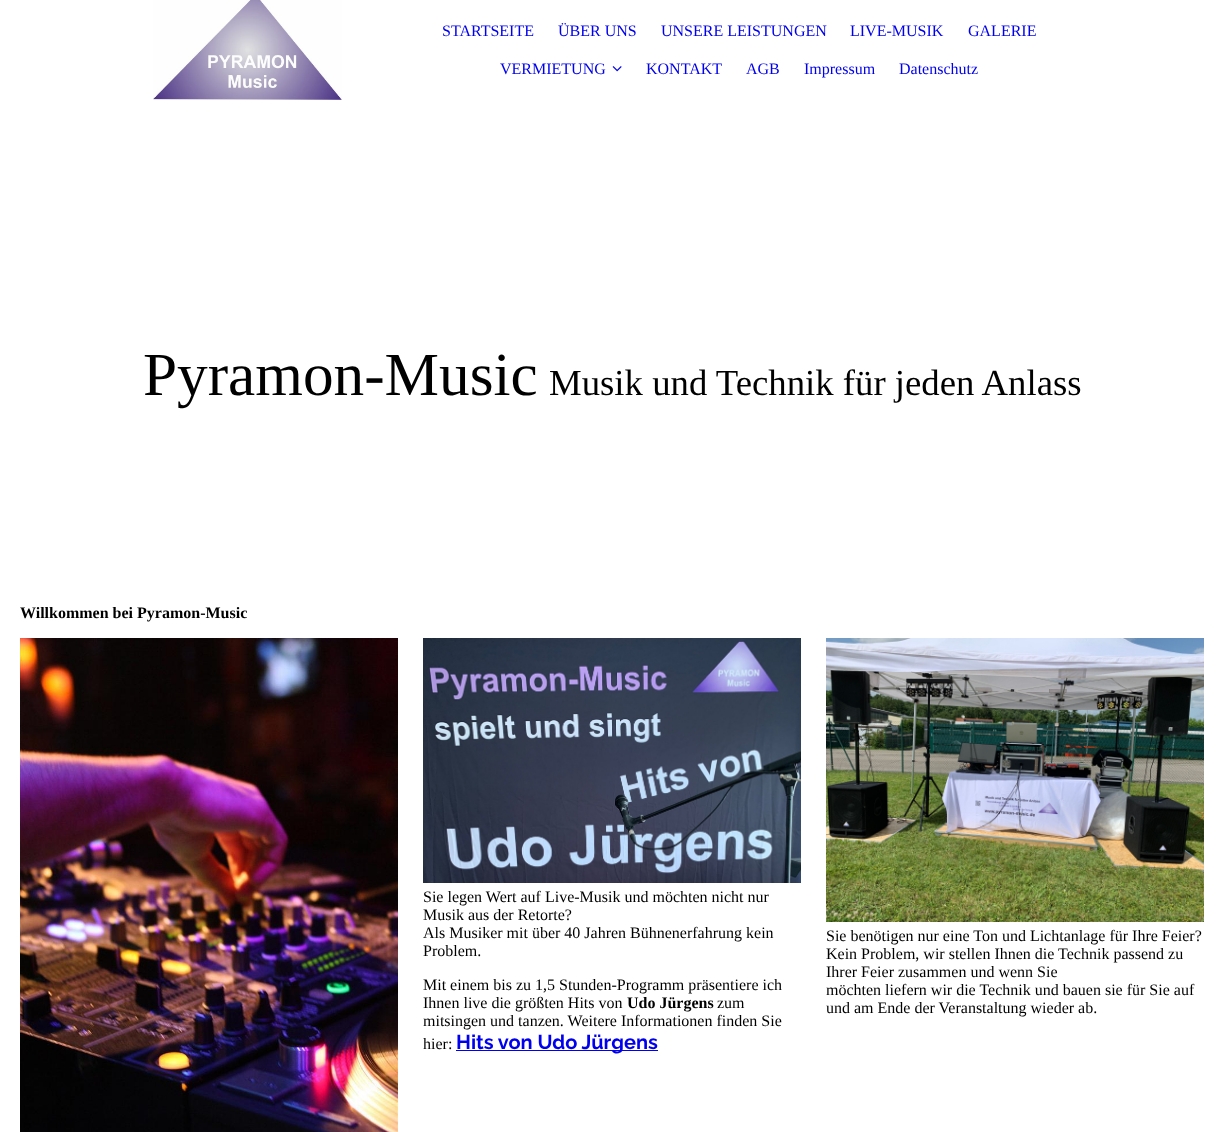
<svg xmlns="http://www.w3.org/2000/svg" width="1224" height="1132">
<rect width="100%" height="100%" fill="#fff"/>
<image x="153" y="0" width="189" height="100" href="media/1.png"/>
<text x="442" y="36" style="font-family:Liberation Serif;font-size:16px;fill:#00e">STARTSEITE</text>
<text x="558" y="36" style="font-family:Liberation Serif;font-size:16px;fill:#00e">ÜBER UNS</text>
<text x="661" y="36" style="font-family:Liberation Serif;font-size:16px;fill:#00e">UNSERE LEISTUNGEN</text>
<text x="850" y="36" style="font-family:Liberation Serif;font-size:16px;fill:#00e">LIVE-MUSIK</text>
<text x="968" y="36" style="font-family:Liberation Serif;font-size:16px;fill:#00e">GALERIE</text>
<text x="500" y="74" style="font-family:Liberation Serif;font-size:16px;fill:#00e">VERMIETUNG</text>
<image x="612" y="66" width="10" height="6" href="media/2.png"/>
<text x="646" y="74" style="font-family:Liberation Serif;font-size:16px;fill:#00e">KONTAKT</text>
<text x="746" y="74" style="font-family:Liberation Serif;font-size:16px;fill:#00e">AGB</text>
<text x="804" y="74" style="font-family:Liberation Serif;font-size:16px;fill:#00e">Impressum</text>
<text x="899" y="74" style="font-family:Liberation Serif;font-size:16px;fill:#00e">Datenschutz</text>
<text x="143" y="395" style="font-family:Liberation Serif;font-size:61.25px;fill:#000">Pyramon-Music</text>
<text x="549" y="395" style="font-family:Liberation Serif;font-size:36.75px;fill:#000">Musik und Technik für jeden Anlass</text>
<text x="20" y="618" style="font-family:Liberation Serif;font-size:16px;font-weight:bold;fill:#000">Willkommen bei Pyramon-Music</text>
<image x="20" y="638" width="378" height="494" href="media/3.png"/>
<image x="423" y="638" width="378" height="245" href="media/4.png"/>
<text x="423" y="902" style="font-family:Liberation Serif;font-size:16px;fill:#000">Sie legen Wert auf Live-Musik und möchten nicht nur</text>
<text x="423" y="920" style="font-family:Liberation Serif;font-size:16px;fill:#000">Musik aus der Retorte?</text>
<text x="423" y="938" style="font-family:Liberation Serif;font-size:16px;fill:#000">Als Musiker mit über 40 Jahren Bühnenerfahrung kein</text>
<text x="423" y="956" style="font-family:Liberation Serif;font-size:16px;fill:#000">Problem.</text>
<text x="423" y="990" style="font-family:Liberation Serif;font-size:16px;fill:#000">Mit einem bis zu 1,5 Stunden-Programm präsentiere ich</text>
<text x="423" y="1008" style="font-family:Liberation Serif;font-size:16px;fill:#000">Ihnen live die größten Hits von</text>
<text x="627" y="1008" style="font-family:Liberation Serif;font-size:16px;font-weight:bold;fill:#000">Udo Jürgens</text>
<text x="717" y="1008" style="font-family:Liberation Serif;font-size:16px;fill:#000">zum</text>
<text x="423" y="1026" style="font-family:Liberation Serif;font-size:16px;fill:#000">mitsingen und tanzen. Weitere Informationen finden Sie</text>
<text x="423" y="1049" style="font-family:Liberation Serif;font-size:16px;fill:#000">hier:</text>
<rect x="456" y="1050" width="202" height="1" fill="#00e"/>
<text x="456" y="1049" style="font-family:Raleway;font-size:20px;font-weight:bold;fill:#00e">Hits von Udo Jürgens</text>
<image x="826" y="638" width="378" height="284" href="media/5.png"/>
<text x="826" y="941" style="font-family:Liberation Serif;font-size:16px;fill:#000">Sie benötigen nur eine Ton und Lichtanlage für Ihre Feier?</text>
<text x="826" y="959" style="font-family:Liberation Serif;font-size:16px;fill:#000">Kein Problem, wir stellen Ihnen die Technik passend zu</text>
<text x="826" y="977" style="font-family:Liberation Serif;font-size:16px;fill:#000">Ihrer Feier zusammen und wenn Sie</text>
<text x="826" y="995" style="font-family:Liberation Serif;font-size:16px;fill:#000">möchten liefern wir die Technik und bauen sie für Sie auf</text>
<text x="826" y="1013" style="font-family:Liberation Serif;font-size:16px;fill:#000">und am Ende der Veranstaltung wieder ab.</text>
</svg>
